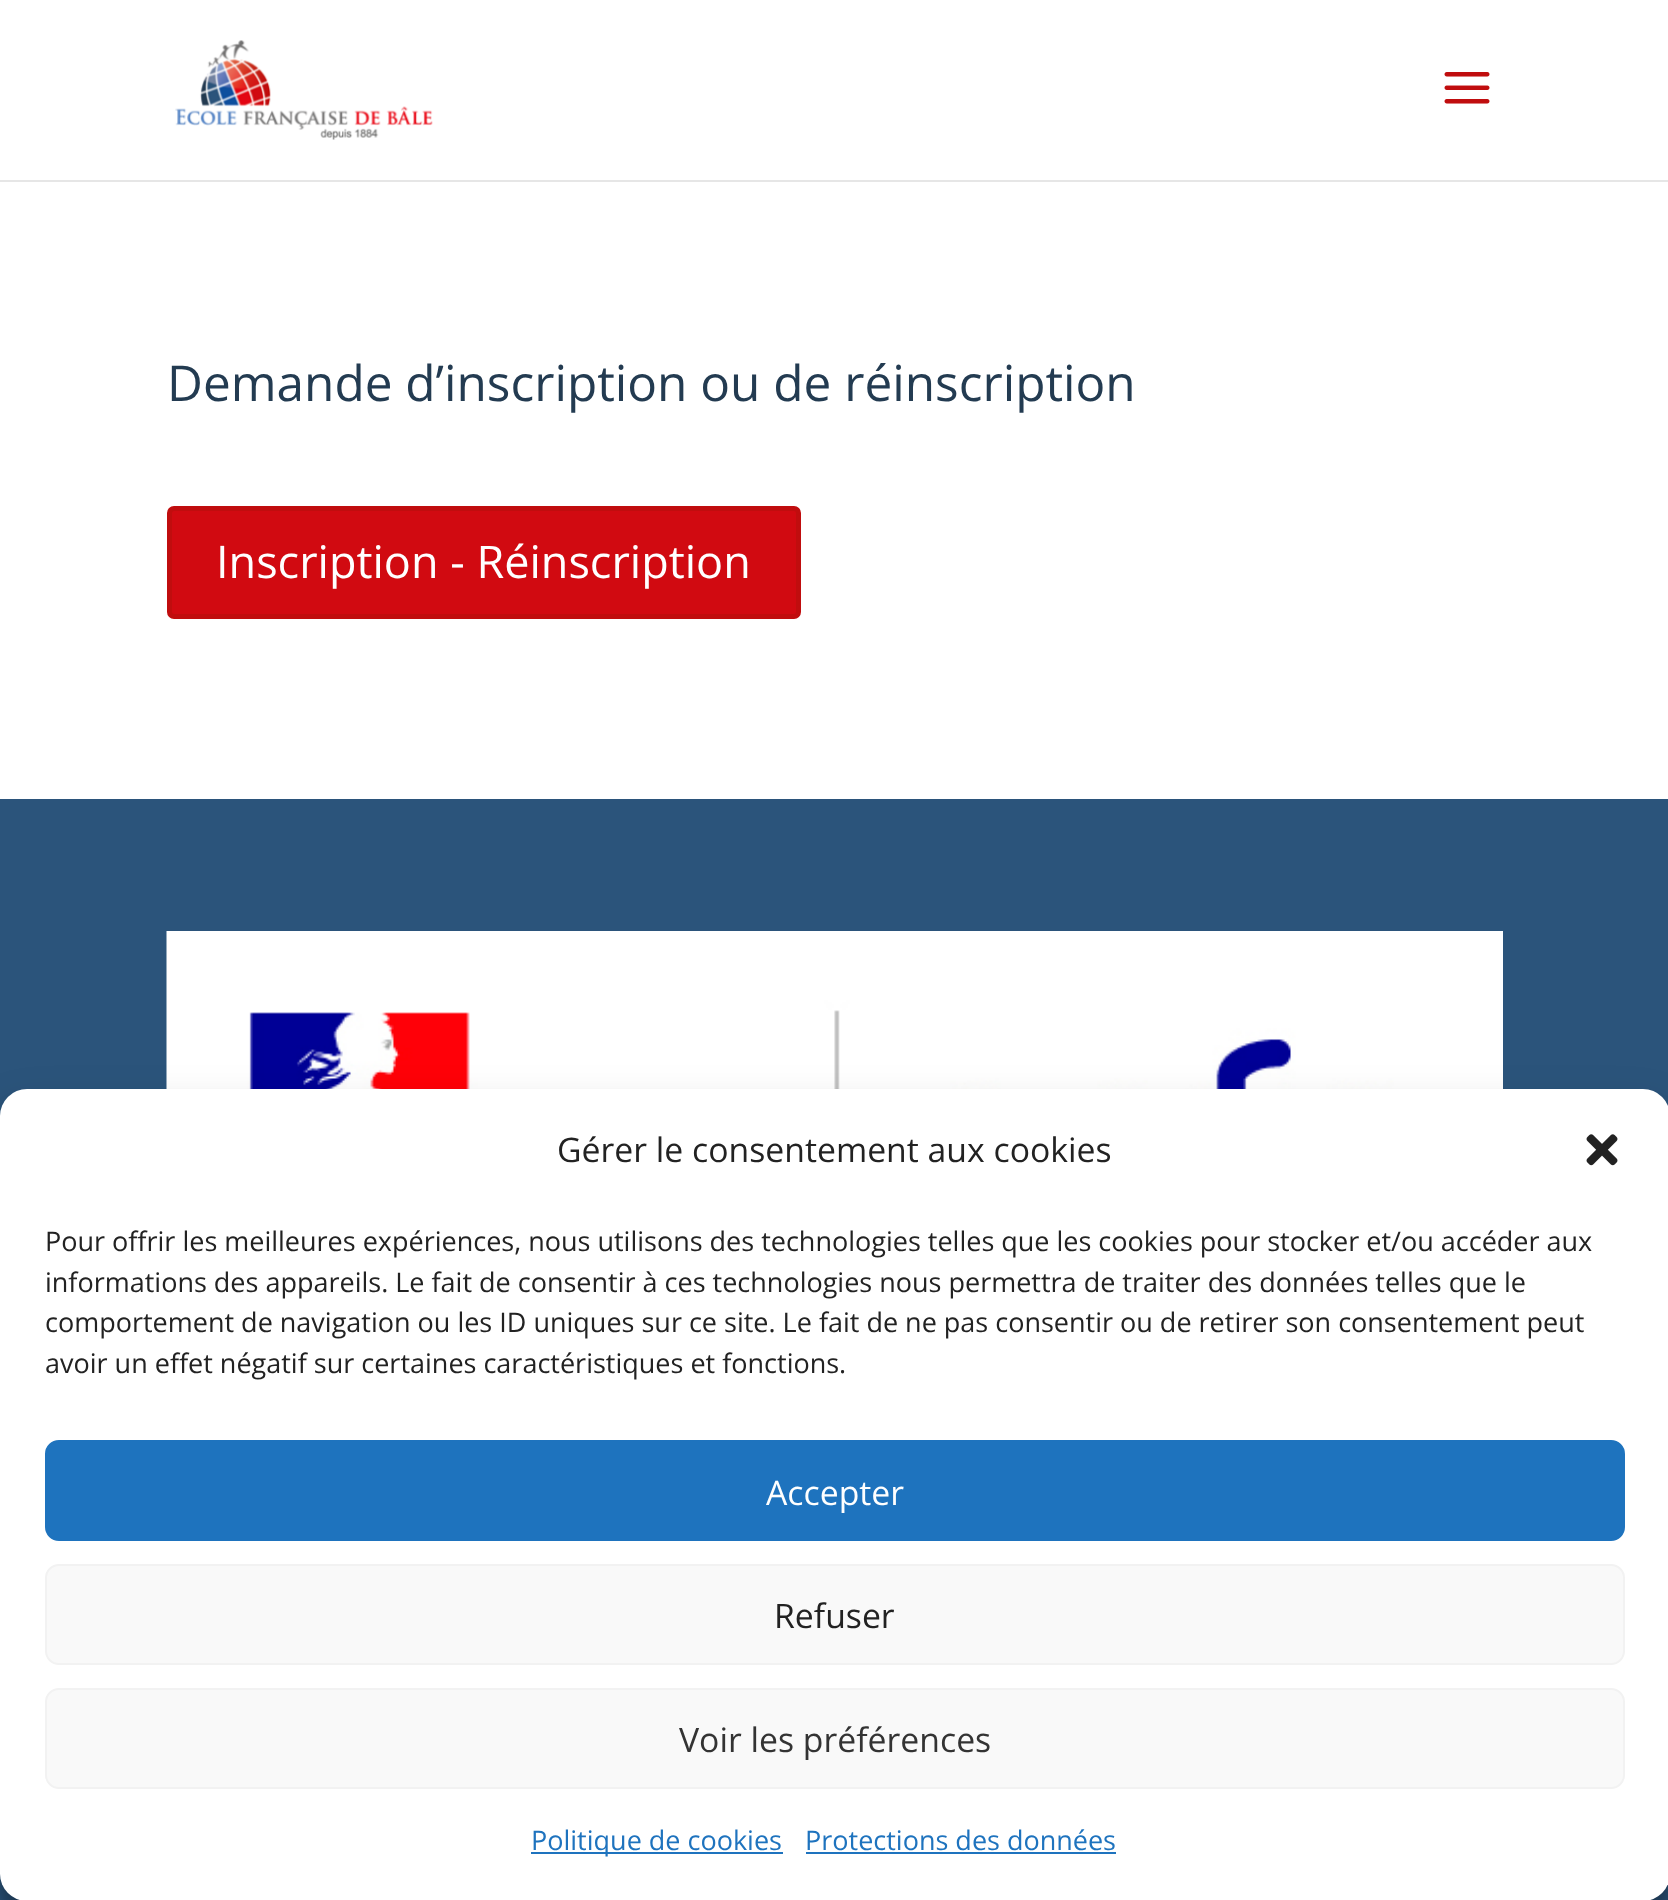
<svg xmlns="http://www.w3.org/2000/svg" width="1668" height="1900">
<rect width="100%" height="100%" fill="#fff"/>
<path d="M0 180v2h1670v-180v178z" fill="#e6e6e6"/>
<image x="175" y="40" width="258" height="100" href="media/1.png"/>
<image x="1444" y="72" width="46" height="32" href="media/2.png"/>
<text x="167" y="401" style="font-family:Open Sans;font-size:49.5px;fill:#233b51">Demande d’inscription ou de réinscription</text>
<rect x="169.5" y="508.5" width="629" height="108" rx="4.5" fill="#d10a11" stroke="#c00d0e" stroke-width="5"/>
<text x="216" y="578" style="font-family:Open Sans;font-size:45px;fill:#fff">Inscription - Réinscription</text>
<rect y="799" width="1668" height="1101" fill="#2b547b"/>
<image x="166" y="931" width="1337" height="158" href="media/3.png"/>
<rect y="1103" width="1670" height="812" rx="27" fill="#0000003b" filter="blur(7px)"/>
<rect y="1112" width="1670" height="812" rx="27" fill="#00000030" filter="blur(22.5px)"/>
<rect y="1089" width="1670" height="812" rx="27" fill="#fff"/>
<text x="557" y="1162" style="font-family:Open Sans;font-size:33.75px;fill:#222">Gérer le consentement aux cookies</text>
<image x="1586" y="1134" width="32" height="32" href="media/4.png"/>
<text x="45" y="1251" style="font-family:Open Sans;font-size:27px;fill:#222">Pour offrir les meilleures expériences, nous utilisons des technologies telles que les cookies pour stocker et/ou accéder aux</text>
<text x="45" y="1292" style="font-family:Open Sans;font-size:27px;fill:#222">informations des appareils. Le fait de consentir à ces technologies nous permettra de traiter des données telles que le</text>
<text x="45" y="1332" style="font-family:Open Sans;font-size:27px;fill:#222">comportement de navigation ou les ID uniques sur ce site. Le fait de ne pas consentir ou de retirer son consentement peut</text>
<text x="45" y="1373" style="font-family:Open Sans;font-size:27px;fill:#222">avoir un effet négatif sur certaines caractéristiques et fonctions.</text>
<rect x="46" y="1441" width="1578" height="99" rx="13" fill="#1e73be" stroke="#1e73be" stroke-width="2"/>
<text x="766" y="1505" style="font-family:Open Sans;font-size:33.75px;fill:#fff">Accepter</text>
<rect x="46" y="1565" width="1578" height="99" rx="13" fill="#f9f9f9" stroke="#f2f2f2" stroke-width="2"/>
<text x="774" y="1628" style="font-family:Open Sans;font-size:33.75px;fill:#222">Refuser</text>
<rect x="46" y="1689" width="1578" height="99" rx="13" fill="#f9f9f9" stroke="#f2f2f2" stroke-width="2"/>
<text x="679" y="1752" style="font-family:Open Sans;font-size:33.75px;fill:#333">Voir les préférences</text>
<rect x="531" y="1852" width="252" height="2" fill="#1e73be"/>
<text x="531" y="1850" style="font-family:Open Sans;font-size:27px;fill:#1e73be">Politique de cookies</text>
<text x="805" y="1850" style="font-family:Open Sans;font-size:27px;fill:#1e73be">Protections des données</text>
<rect x="806" y="1852" width="310" height="2" fill="#1e73be"/>
</svg>
